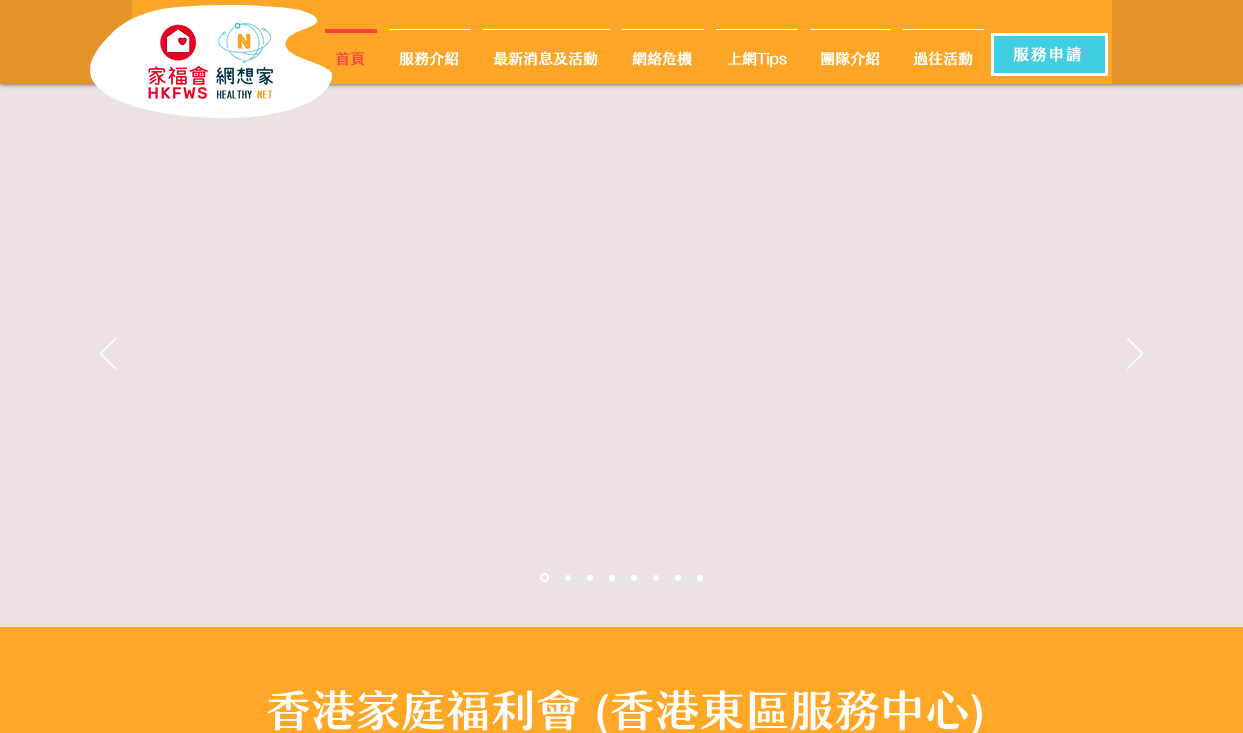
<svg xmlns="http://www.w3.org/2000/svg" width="1243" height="733">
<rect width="100%" height="100%" fill="#ebe3e0"/>
<rect width="1243" height="84" fill="#000000b3" filter="blur(2.5px)"/>
<rect width="1243" height="84" fill="#e59328"/>
<rect x="132" width="980" height="84" fill="#fca526"/>
<path d="M319 96c-5 4-12 8-21 11c-46 18-131 12-173-4c-25-9-35-21-35-33c0-12 9-24 21-36c9-9 22-19 51-25c24-4 55-4 83-4c17 1 36 2 50 4c15 3 26 9 21 14c-2 3-12 6-19 9c-15 7-15 16-2 23c12 6 36 12 37 19c1 7-4 15-13 22z" fill="#fff"/>
<image x="148" y="22" width="126" height="77" href="media/1.png"/>
<rect x="325" y="29" width="52" height="4" fill="#ff4040"/>
<text x="335" y="64" style="font-family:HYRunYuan;font-size:15px;font-weight:bold;fill:#ff4040">首頁</text>
<rect x="389" y="29" width="82" height="1" fill="#fff"/>
<text x="399" y="64" style="font-family:HYRunYuan;font-size:15px;font-weight:bold;fill:#fff">服務介紹</text>
<rect x="483" y="29" width="127" height="1" fill="#fff"/>
<text x="493" y="64" style="font-family:HYRunYuan;font-size:15px;font-weight:bold;fill:#fff">最新消息及活動</text>
<rect x="622" y="29" width="82" height="1" fill="#fff"/>
<text x="632" y="64" style="font-family:HYRunYuan;font-size:15px;font-weight:bold;fill:#fff">網絡危機</text>
<rect x="716" y="29" width="82" height="1" fill="#fff"/>
<text x="727" y="64" style="font-family:HYRunYuan;font-size:15px;font-weight:bold;fill:#fff">上網Tips</text>
<rect x="810" y="29" width="81" height="1" fill="#fff"/>
<text x="820" y="64" style="font-family:HYRunYuan;font-size:15px;font-weight:bold;fill:#fff">團隊介紹</text>
<rect x="903" y="29" width="81" height="1" fill="#fff"/>
<text x="913" y="64" style="font-family:HYRunYuan;font-size:15px;font-weight:bold;fill:#fff">過往活動</text>
<rect x="992.5" y="34.5" width="114" height="40" fill="#40cee3" stroke="#fff" stroke-width="3"/>
<text x="1013" y="60" style="font-family:HYRunYuan;font-size:16px;font-weight:bold;letter-spacing:1.5px;fill:#fff">服務申請</text>
<image x="100" y="338" width="16" height="32" href="media/2.png"/>
<image x="1127" y="338" width="16" height="32" href="media/3.png"/>
<circle cx="544.5" cy="577.5" r="3.5" fill="none" stroke="#fff" stroke-width="2"/>
<circle cx="568" cy="578" r="3" fill="#fff"/>
<circle cx="590" cy="578" r="3" fill="#fff"/>
<circle cx="612" cy="578" r="3" fill="#fff"/>
<circle cx="634" cy="578" r="3" fill="#fff"/>
<circle cx="656" cy="578" r="3" fill="#fff"/>
<circle cx="678" cy="578" r="3" fill="#fff"/>
<circle cx="700" cy="578" r="3" fill="#fff"/>
<rect y="627" width="1243" height="106" fill="#ffa726"/>
<text x="266" y="726" style="font-family:HYRunYuan;font-size:45px;font-weight:500;fill:#fff">香港家庭福利會 (香港東區服務中心)</text>
</svg>
